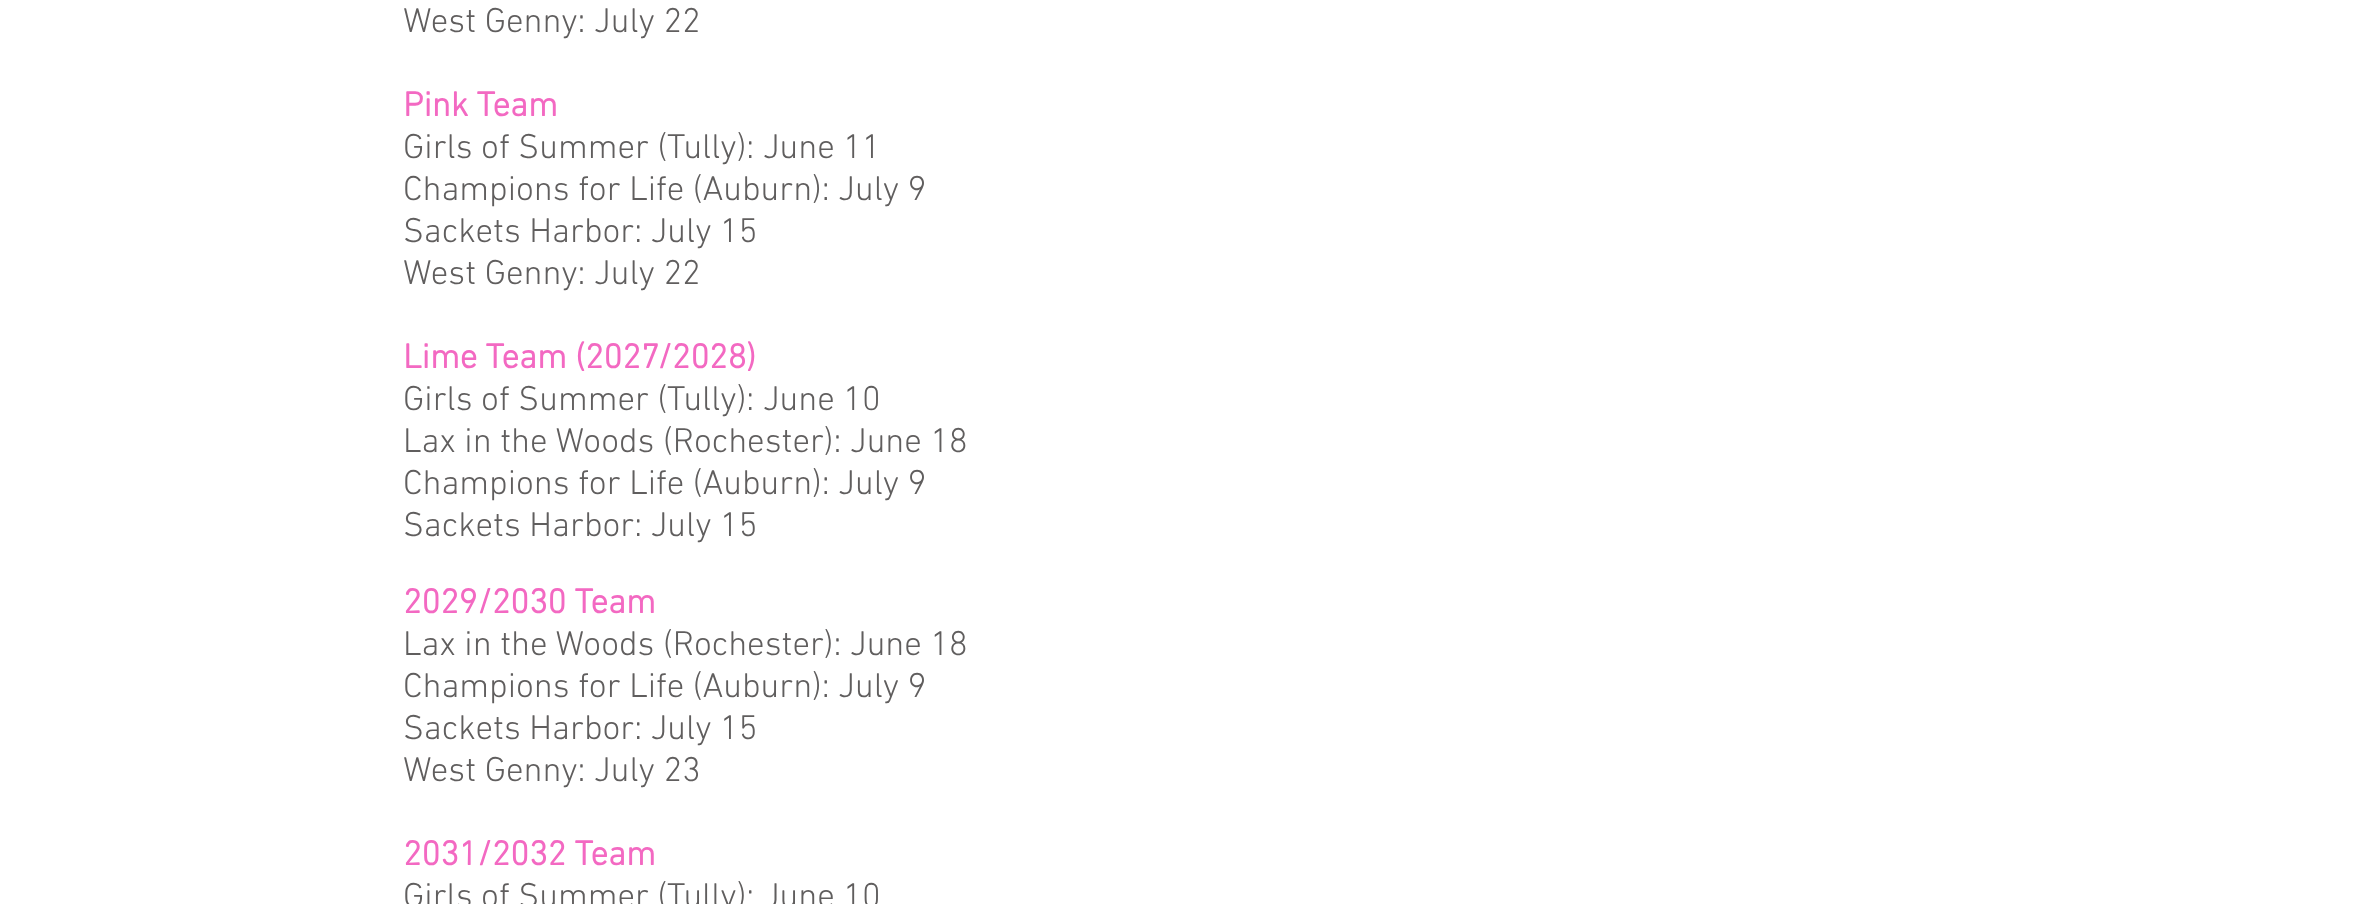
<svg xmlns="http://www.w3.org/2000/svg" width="2373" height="904">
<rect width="100%" height="100%" fill="#fff"/>
<text x="403" y="32" style="font-family:'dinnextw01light';font-size:35px;font-weight:300;fill:#605e5e">West Genny: July 22</text>
<text x="403" y="116" style="font-family:'dinnextw01light';font-size:35px;font-weight:bold;fill:#f369c2">Pink Team</text>
<text x="403" y="158" style="font-family:'dinnextw01light';font-size:35px;font-weight:300;fill:#605e5e">Girls of Summer (Tully): June 11</text>
<text x="403" y="200" style="font-family:'dinnextw01light';font-size:35px;font-weight:300;fill:#605e5e">Champions for Life (Auburn): July 9</text>
<text x="403" y="242" style="font-family:'dinnextw01light';font-size:35px;font-weight:300;fill:#605e5e">Sackets Harbor: July 15</text>
<text x="403" y="284" style="font-family:'dinnextw01light';font-size:35px;font-weight:300;fill:#605e5e">West Genny: July 22</text>
<text x="403" y="368" style="font-family:'dinnextw01light';font-size:35px;font-weight:bold;fill:#f369c2">Lime Team (2027/2028)</text>
<text x="403" y="410" style="font-family:'dinnextw01light';font-size:35px;font-weight:300;fill:#605e5e">Girls of Summer (Tully): June 10</text>
<text x="403" y="452" style="font-family:'dinnextw01light';font-size:35px;font-weight:300;fill:#605e5e">Lax in the Woods (Rochester): June 18</text>
<text x="403" y="494" style="font-family:'dinnextw01light';font-size:35px;font-weight:300;fill:#605e5e">Champions for Life (Auburn): July 9</text>
<text x="403" y="536" style="font-family:'dinnextw01light';font-size:35px;font-weight:300;fill:#605e5e">Sackets Harbor: July 15</text>
<text x="403" y="613" style="font-family:'dinnextw01light';font-size:35px;font-weight:bold;fill:#f369c2">2029/2030 Team</text>
<text x="403" y="655" style="font-family:'dinnextw01light';font-size:35px;font-weight:300;fill:#605e5e">Lax in the Woods (Rochester): June 18</text>
<text x="403" y="697" style="font-family:'dinnextw01light';font-size:35px;font-weight:300;fill:#605e5e">Champions for Life (Auburn): July 9</text>
<text x="403" y="739" style="font-family:'dinnextw01light';font-size:35px;font-weight:300;fill:#605e5e">Sackets Harbor: July 15</text>
<text x="403" y="781" style="font-family:'dinnextw01light';font-size:35px;font-weight:300;fill:#605e5e">West Genny: July 23</text>
<text x="403" y="865" style="font-family:'dinnextw01light';font-size:35px;font-weight:bold;fill:#f369c2">2031/2032 Team</text>
<text x="403" y="907" style="font-family:'dinnextw01light';font-size:35px;font-weight:300;fill:#605e5e">Girls of Summer (Tully): June 10</text>
</svg>
